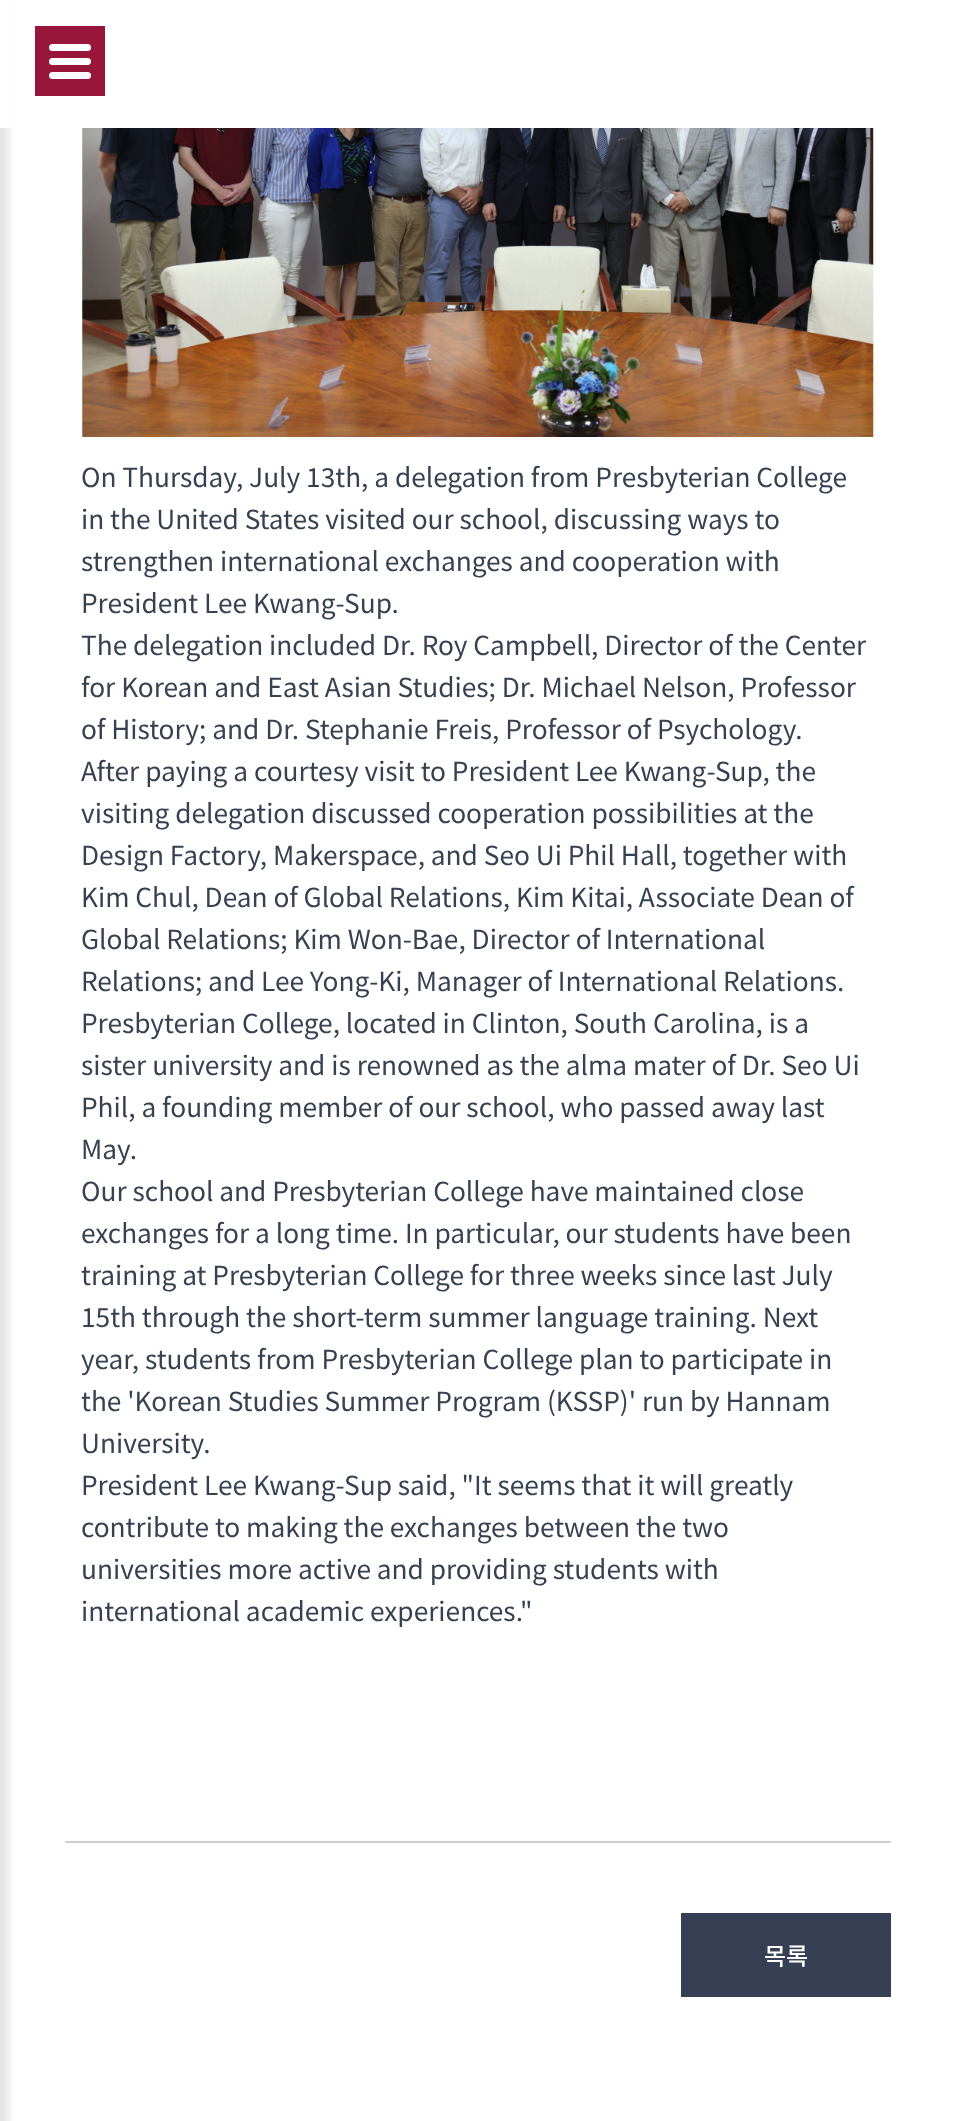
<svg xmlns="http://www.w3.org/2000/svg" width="954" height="2121">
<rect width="100%" height="100%" fill="#fff"/>
<rect x="-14" y="-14" width="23" height="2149" fill="#0000001a" filter="blur(4.5px)"/>
<rect width="15" height="128" fill="#fff"/>
<rect x="35" y="26" width="70" height="70" fill="#98163c"/>
<rect x="49" y="58" width="42" height="7" rx="3.5" fill="#fff"/>
<rect x="49" y="44" width="42" height="7" rx="3.5" fill="#fff"/>
<rect x="49" y="72" width="42" height="7" rx="3.5" fill="#fff"/>
<rect x="65" y="1841" width="826" height="2" fill="#cfcfcf"/>
<image x="82" y="128" width="792" height="309" href="media/1.png"/>
<text x="81" y="487" style="font-family:Noto Sans KR;font-size:26.25px;fill:#374151">On Thursday, July 13th, a delegation from Presbyterian College</text>
<text x="81" y="529" style="font-family:Noto Sans KR;font-size:26.25px;fill:#374151">in the United States visited our school, discussing ways to</text>
<text x="81" y="571" style="font-family:Noto Sans KR;font-size:26.25px;fill:#374151">strengthen international exchanges and cooperation with</text>
<text x="81" y="613" style="font-family:Noto Sans KR;font-size:26.25px;fill:#374151">President Lee Kwang-Sup.</text>
<text x="81" y="655" style="font-family:Noto Sans KR;font-size:26.25px;fill:#374151">The delegation included Dr. Roy Campbell, Director of the Center</text>
<text x="81" y="697" style="font-family:Noto Sans KR;font-size:26.25px;fill:#374151">for Korean and East Asian Studies; Dr. Michael Nelson, Professor</text>
<text x="81" y="739" style="font-family:Noto Sans KR;font-size:26.25px;fill:#374151">of History; and Dr. Stephanie Freis, Professor of Psychology.</text>
<text x="81" y="781" style="font-family:Noto Sans KR;font-size:26.25px;fill:#374151">After paying a courtesy visit to President Lee Kwang-Sup, the</text>
<text x="81" y="823" style="font-family:Noto Sans KR;font-size:26.25px;fill:#374151">visiting delegation discussed cooperation possibilities at the</text>
<text x="81" y="865" style="font-family:Noto Sans KR;font-size:26.25px;fill:#374151">Design Factory, Makerspace, and Seo Ui Phil Hall, together with</text>
<text x="81" y="907" style="font-family:Noto Sans KR;font-size:26.25px;fill:#374151">Kim Chul, Dean of Global Relations, Kim Kitai, Associate Dean of</text>
<text x="81" y="949" style="font-family:Noto Sans KR;font-size:26.25px;fill:#374151">Global Relations; Kim Won-Bae, Director of International</text>
<text x="81" y="991" style="font-family:Noto Sans KR;font-size:26.25px;fill:#374151">Relations; and Lee Yong-Ki, Manager of International Relations.</text>
<text x="81" y="1033" style="font-family:Noto Sans KR;font-size:26.25px;fill:#374151">Presbyterian College, located in Clinton, South Carolina, is a</text>
<text x="81" y="1075" style="font-family:Noto Sans KR;font-size:26.25px;fill:#374151">sister university and is renowned as the alma mater of Dr. Seo Ui</text>
<text x="81" y="1117" style="font-family:Noto Sans KR;font-size:26.25px;fill:#374151">Phil, a founding member of our school, who passed away last</text>
<text x="81" y="1159" style="font-family:Noto Sans KR;font-size:26.25px;fill:#374151">May.</text>
<text x="81" y="1201" style="font-family:Noto Sans KR;font-size:26.25px;fill:#374151">Our school and Presbyterian College have maintained close</text>
<text x="81" y="1243" style="font-family:Noto Sans KR;font-size:26.25px;fill:#374151">exchanges for a long time. In particular, our students have been</text>
<text x="81" y="1285" style="font-family:Noto Sans KR;font-size:26.25px;fill:#374151">training at Presbyterian College for three weeks since last July</text>
<text x="81" y="1327" style="font-family:Noto Sans KR;font-size:26.25px;fill:#374151">15th through the short-term summer language training. Next</text>
<text x="81" y="1369" style="font-family:Noto Sans KR;font-size:26.25px;fill:#374151">year, students from Presbyterian College plan to participate in</text>
<text x="81" y="1411" style="font-family:Noto Sans KR;font-size:26.25px;fill:#374151">the 'Korean Studies Summer Program (KSSP)' run by Hannam</text>
<text x="81" y="1453" style="font-family:Noto Sans KR;font-size:26.25px;fill:#374151">University.</text>
<text x="81" y="1495" style="font-family:Noto Sans KR;font-size:26.25px;fill:#374151">President Lee Kwang-Sup said, "It seems that it will greatly</text>
<text x="81" y="1537" style="font-family:Noto Sans KR;font-size:26.25px;fill:#374151">contribute to making the exchanges between the two</text>
<text x="81" y="1579" style="font-family:Noto Sans KR;font-size:26.25px;fill:#374151">universities more active and providing students with</text>
<text x="81" y="1621" style="font-family:Noto Sans KR;font-size:26.25px;fill:#374151">international academic experiences."</text>
<rect x="681" y="1913" width="210" height="84" fill="#373f55"/>
<text x="764" y="1965" style="font-family:Noto Sans KR;font-size:24px;font-weight:500;fill:#fff">목록</text>
</svg>
